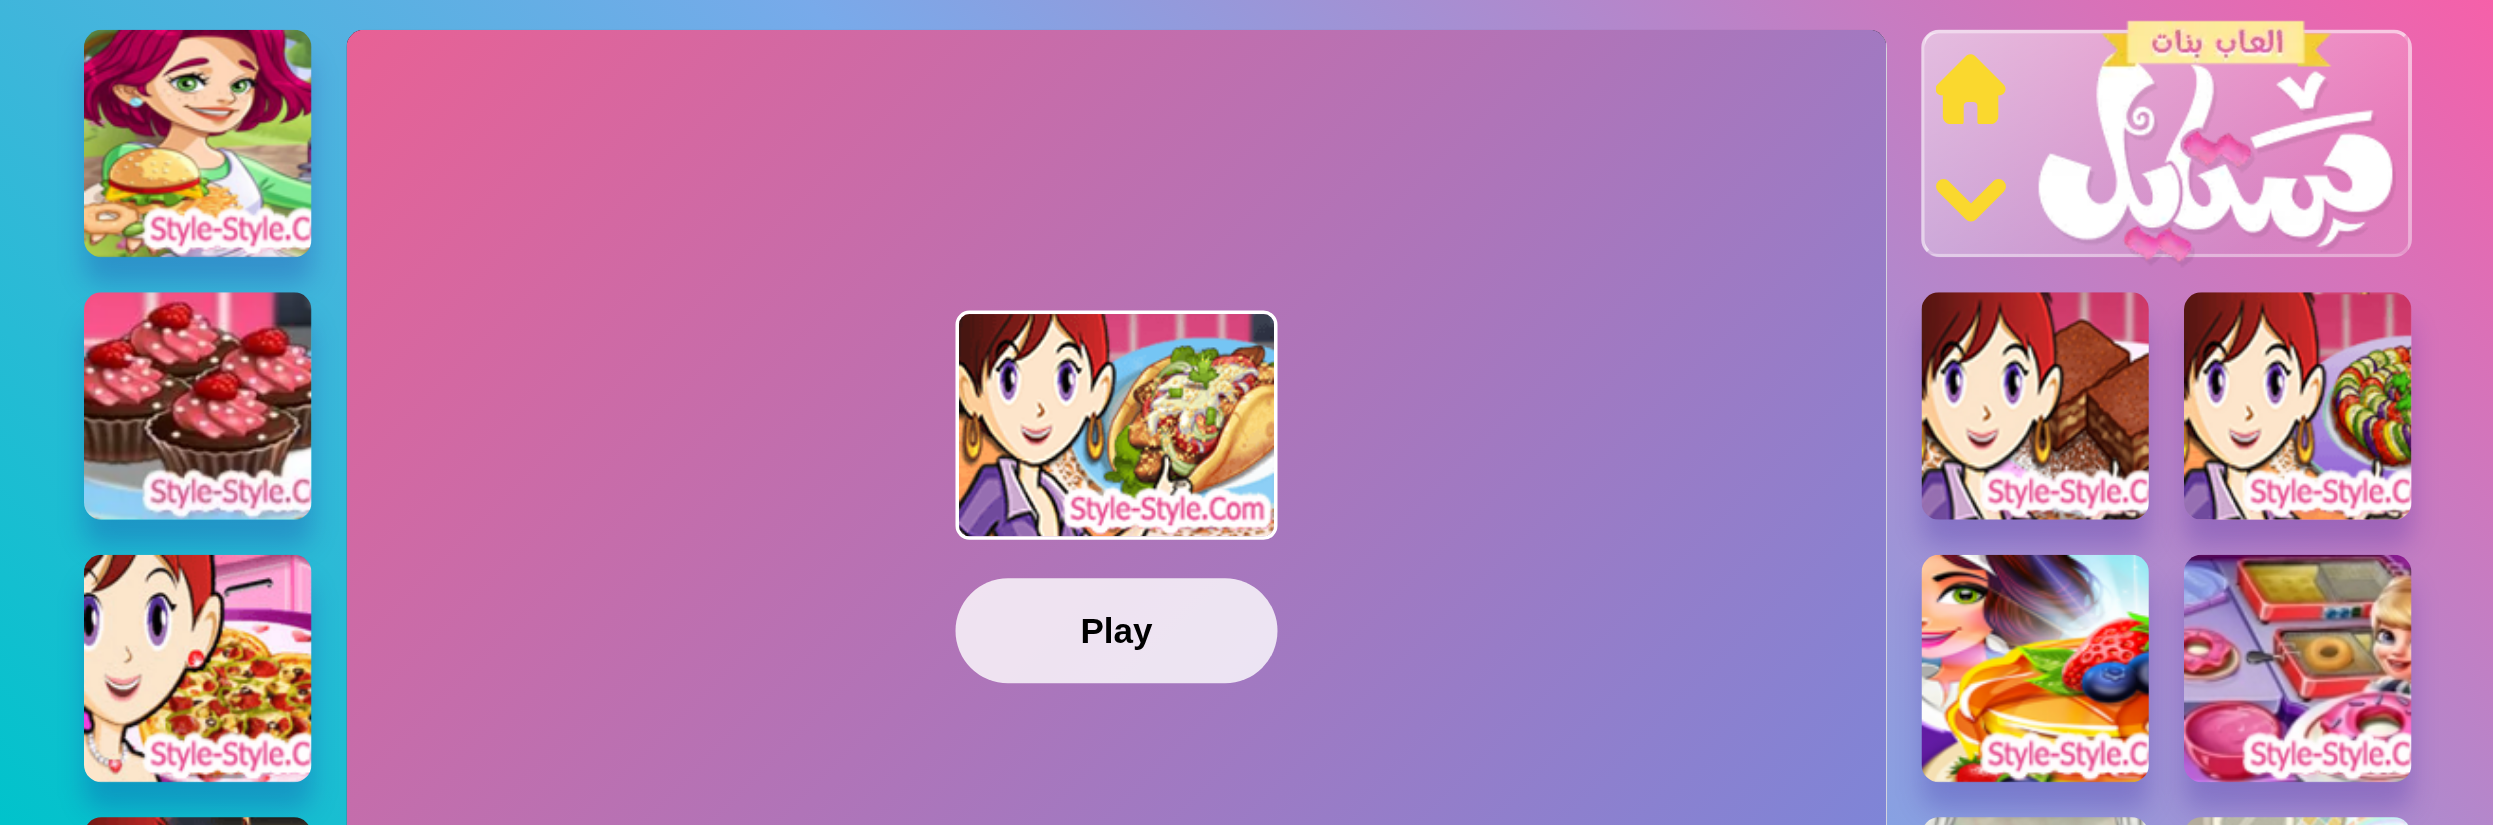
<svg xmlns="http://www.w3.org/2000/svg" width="2493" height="825">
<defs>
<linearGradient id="g1" gradientUnits="userSpaceOnUse" x1="2033" y1="-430" x2="461" y2="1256"><stop offset="0" stop-color="#f660a9"/><stop offset="0.5" stop-color="#78aaea"/><stop offset="1" stop-color="#00c3cb"/></linearGradient>
<clipPath id="clip1"><path d="M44 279h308v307h-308zm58 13h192c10 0 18 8 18 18v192c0 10-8 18-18 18h-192c-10 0-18-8-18-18v-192c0-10 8-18 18-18z" clip-rule="evenodd"/></clipPath>
<clipPath id="clip2"><path d="M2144 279h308v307h-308zm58 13h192c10 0 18 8 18 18v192c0 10-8 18-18 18h-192c-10 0-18-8-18-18v-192c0-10 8-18 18-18z" clip-rule="evenodd"/></clipPath>
<clipPath id="clip3"><rect x="1922" y="30" width="490" height="227" rx="18"/></clipPath>
<linearGradient id="g2" gradientUnits="userSpaceOnUse" x1="2293" y1="111" x2="2040" y2="-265"><stop offset="0.2" stop-color="#fff" stop-opacity="0.1"/><stop offset="1" stop-color="#fff" stop-opacity="0.5"/></linearGradient>
<linearGradient id="g3" gradientUnits="userSpaceOnUse" x1="1810" y1="331" x2="1557" y2="-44"><stop offset="0.2" stop-color="#fff" stop-opacity="0.1"/><stop offset="1" stop-color="#fff" stop-opacity="0.5"/></linearGradient>
<linearGradient id="g4" gradientUnits="userSpaceOnUse" x1="2293" y1="331" x2="2040" y2="-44"><stop offset="0.2" stop-color="#fff" stop-opacity="0.1"/><stop offset="1" stop-color="#fff" stop-opacity="0.5"/></linearGradient>
<linearGradient id="g5" gradientUnits="userSpaceOnUse" x1="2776" y1="331" x2="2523" y2="-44"><stop offset="0.2" stop-color="#fff" stop-opacity="0.1"/><stop offset="1" stop-color="#fff" stop-opacity="0.5"/></linearGradient>
<linearGradient id="g6" gradientUnits="userSpaceOnUse" x1="2293" y1="552" x2="2040" y2="176"><stop offset="0.2" stop-color="#fff" stop-opacity="0.1"/><stop offset="1" stop-color="#fff" stop-opacity="0.5"/></linearGradient>
</defs>
<rect width="100%" height="100%" fill="#fff"/>
<rect width="2493" height="825" fill="url(#g1)"/>
<rect x="84" y="56" width="228" height="228" rx="18" fill="#0e028f33" filter="blur(13px)"/>
<image x="84" y="29" width="228" height="229" href="media/1.png"/>
<g clip-path="url(#clip1)">
<rect x="84" y="319" width="228" height="227" rx="18" fill="#0e028f33" filter="blur(13px)"/>
</g>
<g clip-path="url(#clip2)">
<rect x="2184" y="319" width="228" height="227" rx="18" fill="#0e028f33" filter="blur(13px)"/>
</g>
<image x="2184" y="292" width="228" height="228" href="media/5.png"/>
<rect x="1922" y="319" width="227" height="227" rx="18" fill="#0e028f33" filter="blur(13px)"/>
<rect x="84" y="581" width="228" height="228" rx="18" fill="#0e028f33" filter="blur(13px)"/>
<rect x="2184" y="581" width="228" height="228" rx="18" fill="#0e028f33" filter="blur(13px)"/>
<image x="2184" y="554" width="228" height="229" href="media/8.png"/>
<rect x="1922" y="581" width="227" height="228" rx="18" fill="#0e028f33" filter="blur(13px)"/>
<rect x="347" y="30" width="1540" height="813" rx="18" fill="#fff"/>
<image x="346" y="29" width="1541" height="796" href="media/2.png"/>
<image x="84" y="292" width="228" height="228" href="media/3.png"/>
<image x="1921" y="292" width="228" height="228" href="media/4.png"/>
<image x="84" y="554" width="228" height="229" href="media/6.png"/>
<image x="1921" y="554" width="228" height="229" href="media/7.png"/>
<image x="87" y="817" width="222" height="8" href="media/9.png"/>
<image x="1924" y="817" width="222" height="8" href="media/10.png"/>
<image x="2187" y="817" width="222" height="8" href="media/11.png"/>
<g clip-path="url(#clip3)">
<rect x="1925" y="30" width="483" height="3" fill="url(#g2)"/>
<rect x="1922" y="33" width="3" height="221" fill="url(#g3)"/>
<rect x="1925" y="33" width="483" height="221" fill="url(#g4)"/>
<rect x="2408" y="33" width="4" height="221" fill="url(#g5)"/>
<rect x="1925" y="254" width="483" height="3" fill="url(#g6)"/>
</g>
<path d="M2405 36c3 3 5 7 5 11v193c0 4-2 8-5 11c-3 3-7 4.5-11 4.5h-455c-4 0-8-1.5-11-4.5" fill="none" stroke="#ffffff33" stroke-width="3.5"/>
<path d="M1928 251c-3-3-5-7-5-11v-192.5c0-4.5 2-8.5 5-11.5c3-3 7-4.5 11-4.5h455c4 0 8 1.5 11 4.5" fill="none" stroke="#ffffff99" stroke-width="3.5"/>
<image x="1936" y="54" width="70" height="70" href="media/12.png"/>
<path d="M1943.5 186.5l27.5 27.5l27.5-27.5" fill="none" stroke="#fad82e" stroke-width="14.9" stroke-linecap="round" stroke-linejoin="round"/>
<image x="2038" y="20" width="358" height="248" href="media/13.png"/>
</svg>
